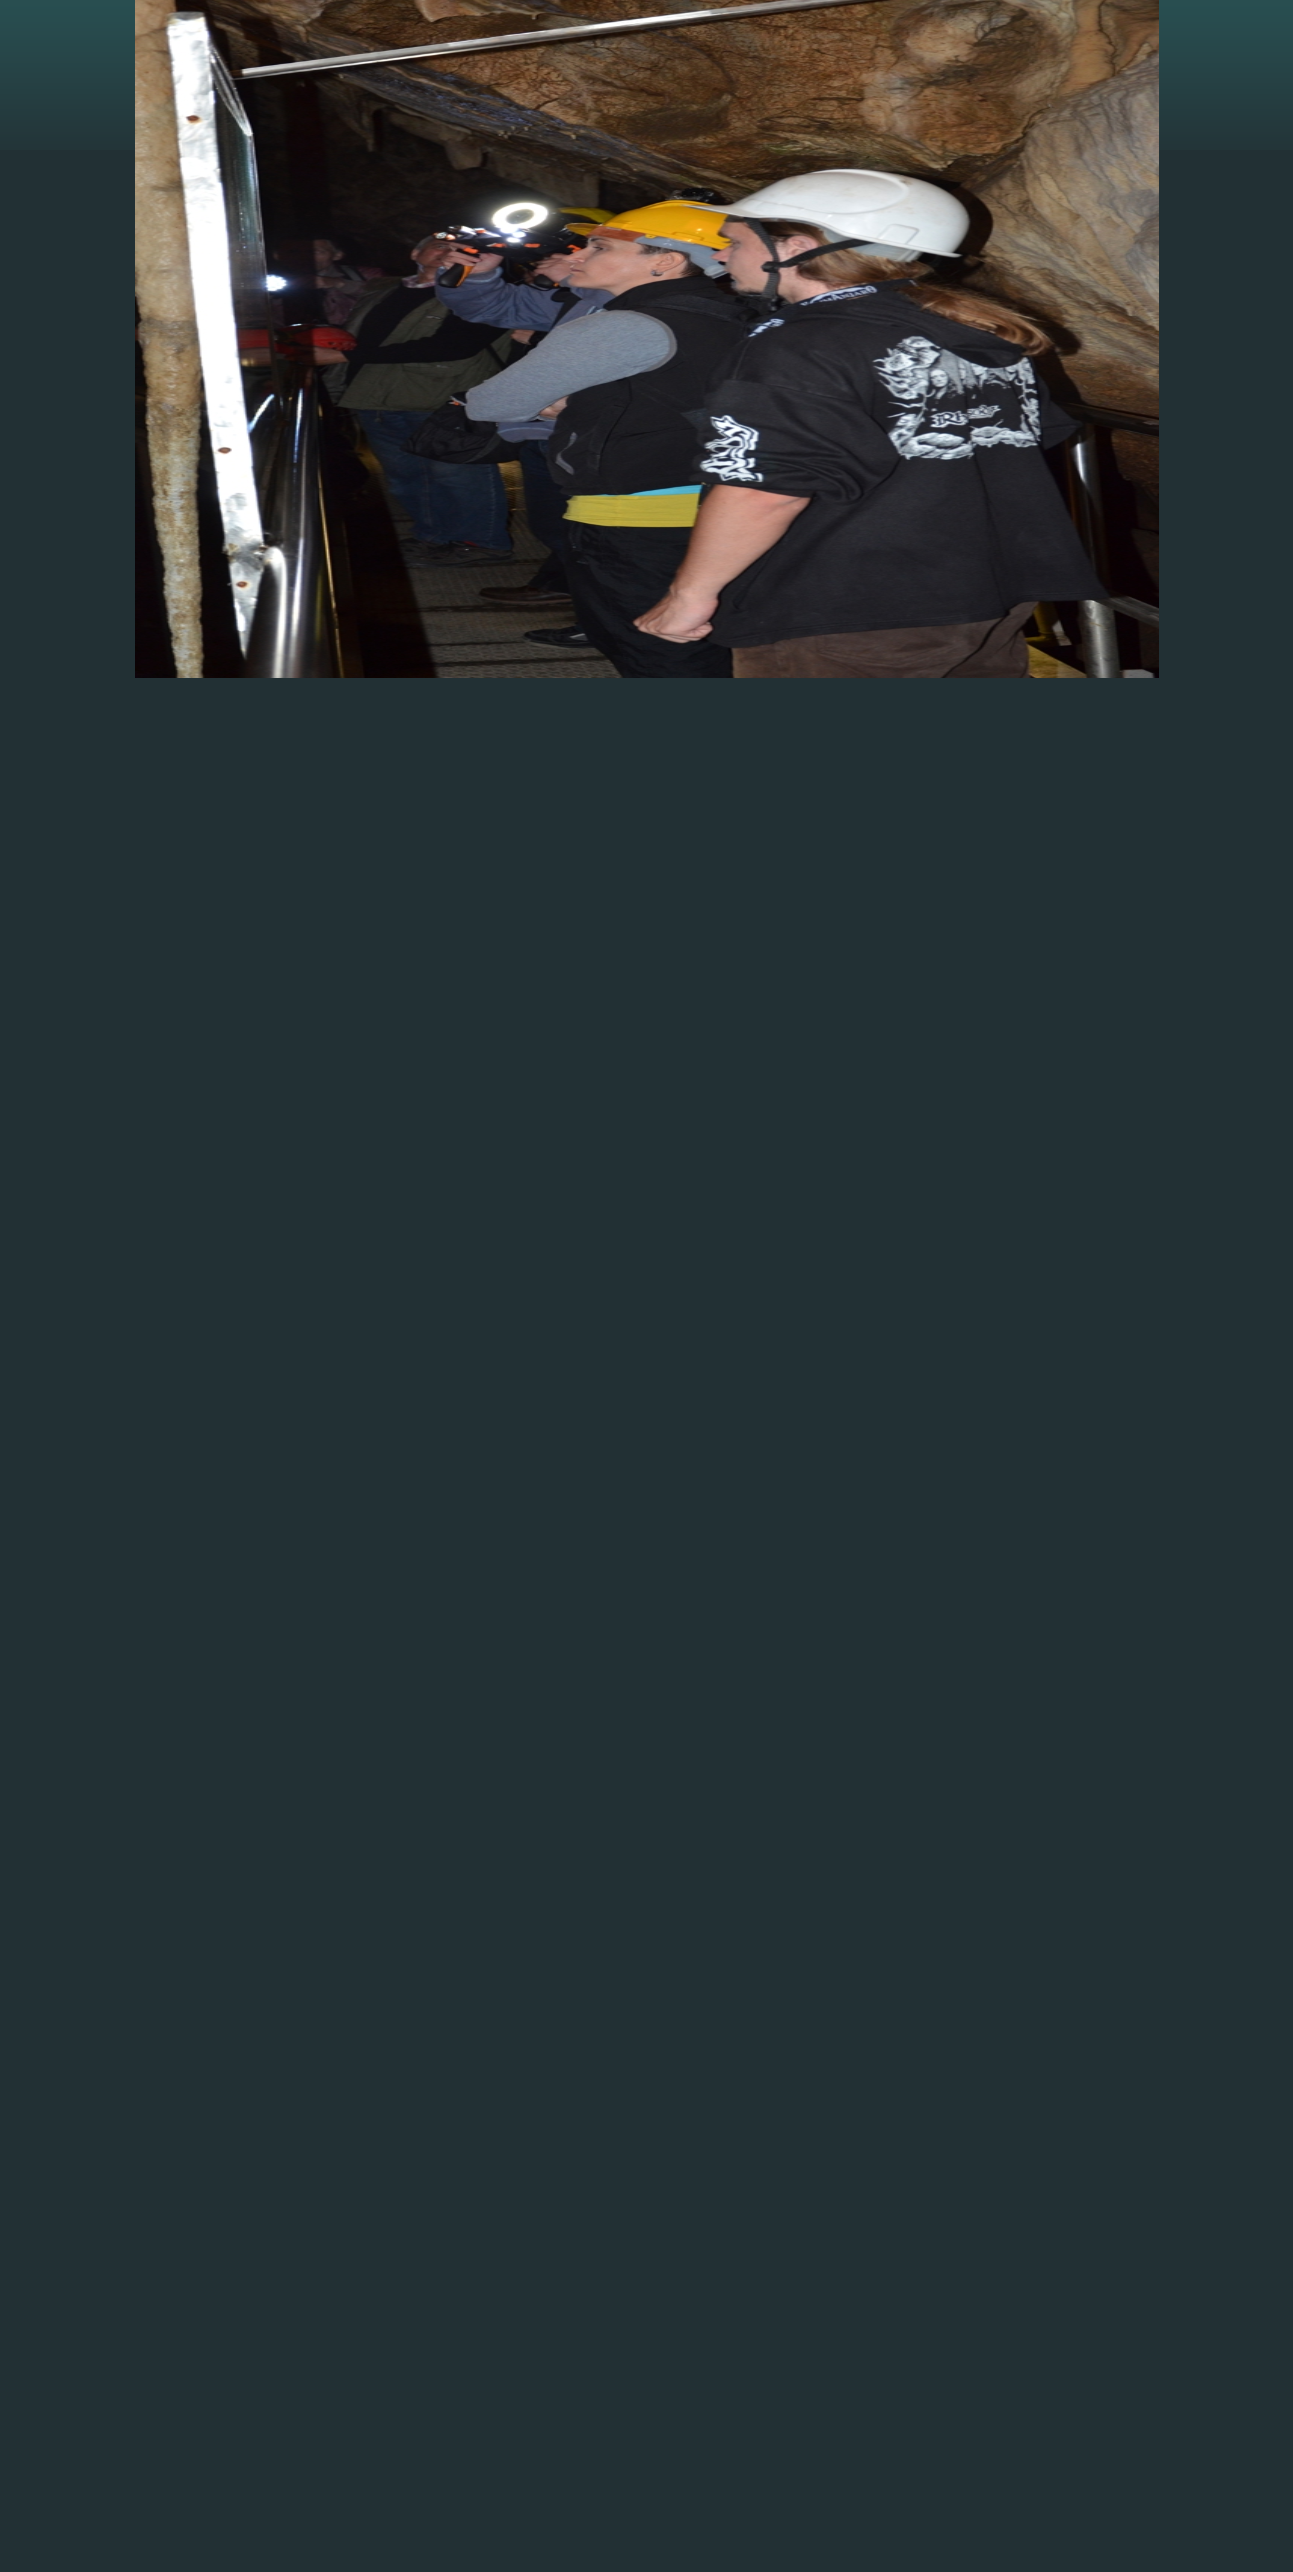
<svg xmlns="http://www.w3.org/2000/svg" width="1293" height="2572">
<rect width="100%" height="100%" fill="#223034"/>
<image x="0" y="0" width="1293" height="150" href="media/1.png"/>
<image x="135" y="0" width="1024" height="678" href="media/2.png"/>
</svg>
